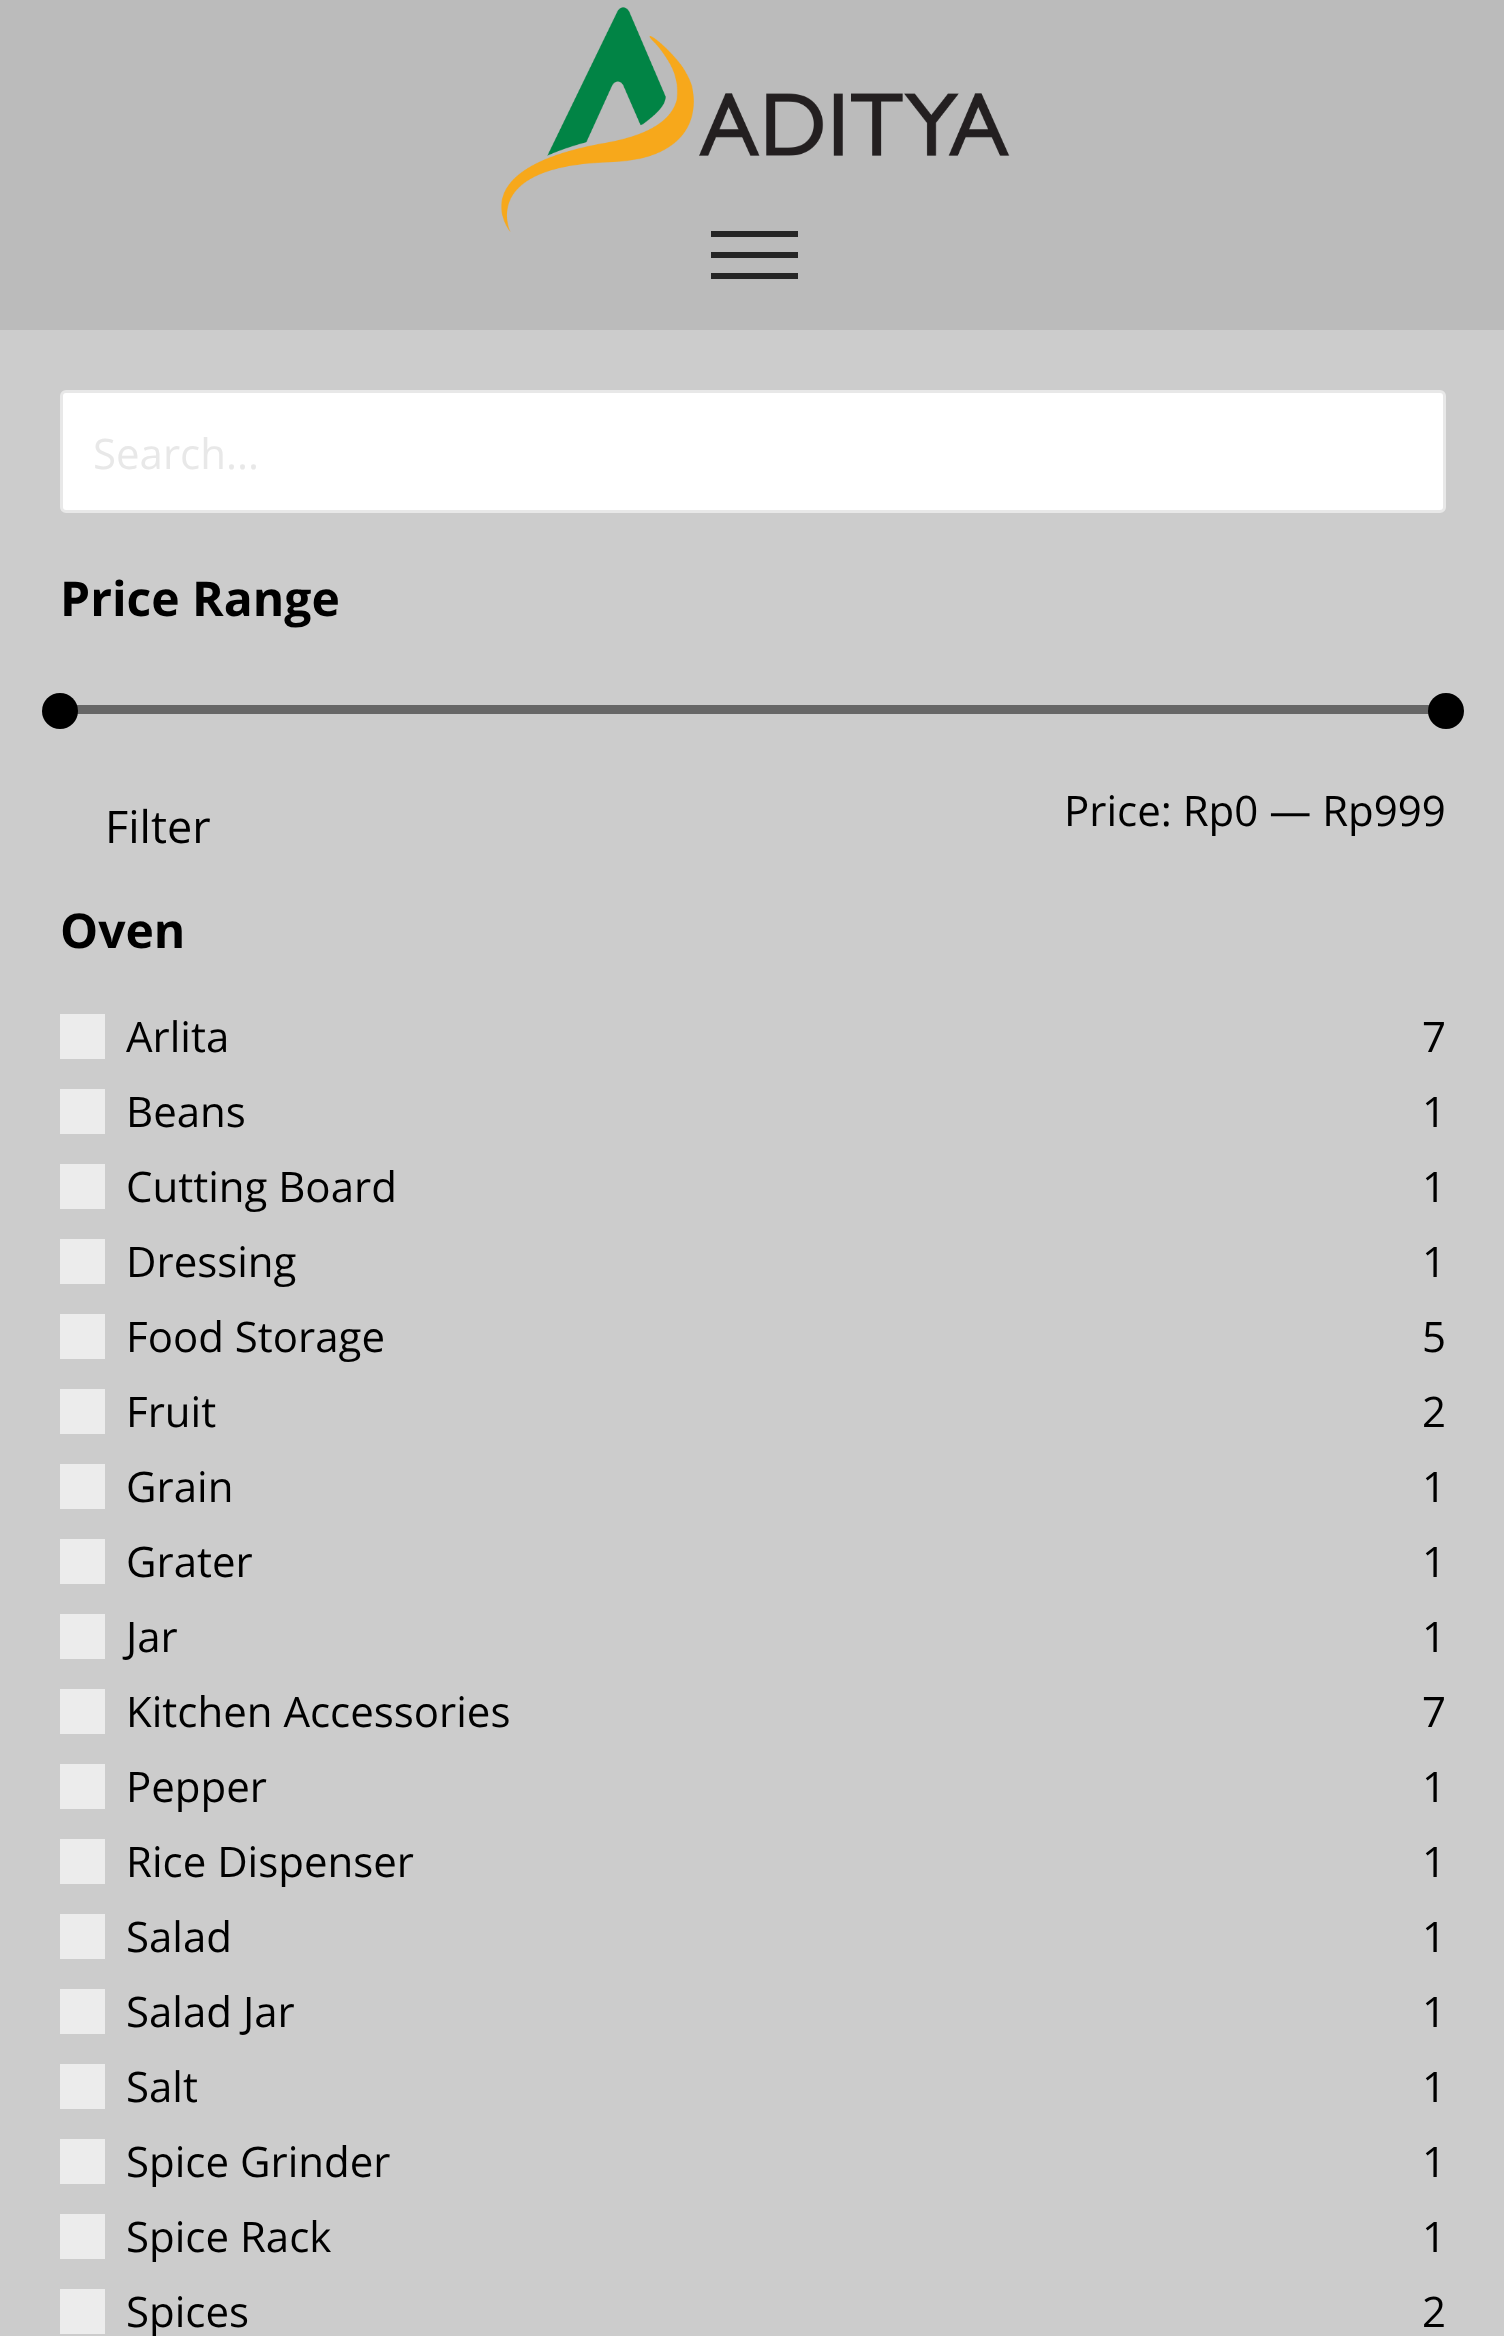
<svg xmlns="http://www.w3.org/2000/svg" width="1504" height="2336">
<rect width="100%" height="100%" fill="#ccc"/>
<rect width="1504" height="330" fill="#bbb"/>
<rect x="711" y="231" width="87" height="6" fill="#252525"/>
<image x="501" y="7" width="509" height="225" href="media/1.png"/>
<rect x="711" y="252" width="87" height="6" fill="#252525"/>
<rect x="711" y="273" width="87" height="6" fill="#252525"/>
<rect x="61.5" y="391.5" width="1383" height="120" rx="4.5" fill="#fff" stroke="#e8e8e8" stroke-width="3"/>
<text x="93" y="469" style="font-family:Open Sans;font-size:42px;fill:#e8e8e8">Search...</text>
<text x="60" y="616" style="font-family:Open Sans;font-size:48px;font-weight:bold;fill:#000">Price Range</text>
<rect x="77" y="705" width="1352" height="9" fill="#666"/>
<circle cx="60" cy="711" r="18" fill="#000"/>
<circle cx="1446" cy="711" r="18" fill="#000"/>
<text x="105" y="843" style="font-family:Open Sans;font-size:45px;fill:#000">Filter</text>
<text x="1064" y="826" style="font-family:Open Sans;font-size:42px;fill:#000">Price: Rp0 — Rp999</text>
<text x="60" y="948" style="font-family:Open Sans;font-size:48px;font-weight:bold;fill:#000">Oven</text>
<rect x="60" y="1014" width="45" height="45" fill="#ececec"/>
<text x="126" y="1052" style="font-family:Open Sans;font-size:42px;fill:#000">Arlita</text>
<text x="1422" y="1052" style="font-family:Open Sans;font-size:42px;fill:#000">7</text>
<rect x="60" y="1089" width="45" height="45" fill="#ececec"/>
<text x="126" y="1127" style="font-family:Open Sans;font-size:42px;fill:#000">Beans</text>
<text x="1422" y="1127" style="font-family:Open Sans;font-size:42px;fill:#000">1</text>
<rect x="60" y="1164" width="45" height="45" fill="#ececec"/>
<text x="126" y="1202" style="font-family:Open Sans;font-size:42px;fill:#000">Cutting Board</text>
<text x="1422" y="1202" style="font-family:Open Sans;font-size:42px;fill:#000">1</text>
<rect x="60" y="1239" width="45" height="45" fill="#ececec"/>
<text x="126" y="1277" style="font-family:Open Sans;font-size:42px;fill:#000">Dressing</text>
<text x="1422" y="1277" style="font-family:Open Sans;font-size:42px;fill:#000">1</text>
<rect x="60" y="1314" width="45" height="45" fill="#ececec"/>
<text x="126" y="1352" style="font-family:Open Sans;font-size:42px;fill:#000">Food Storage</text>
<text x="1422" y="1352" style="font-family:Open Sans;font-size:42px;fill:#000">5</text>
<rect x="60" y="1389" width="45" height="45" fill="#ececec"/>
<text x="126" y="1427" style="font-family:Open Sans;font-size:42px;fill:#000">Fruit</text>
<text x="1422" y="1427" style="font-family:Open Sans;font-size:42px;fill:#000">2</text>
<rect x="60" y="1464" width="45" height="45" fill="#ececec"/>
<text x="126" y="1502" style="font-family:Open Sans;font-size:42px;fill:#000">Grain</text>
<text x="1422" y="1502" style="font-family:Open Sans;font-size:42px;fill:#000">1</text>
<rect x="60" y="1539" width="45" height="45" fill="#ececec"/>
<text x="126" y="1577" style="font-family:Open Sans;font-size:42px;fill:#000">Grater</text>
<text x="1422" y="1577" style="font-family:Open Sans;font-size:42px;fill:#000">1</text>
<rect x="60" y="1614" width="45" height="45" fill="#ececec"/>
<text x="126" y="1652" style="font-family:Open Sans;font-size:42px;fill:#000">Jar</text>
<text x="1422" y="1652" style="font-family:Open Sans;font-size:42px;fill:#000">1</text>
<rect x="60" y="1689" width="45" height="45" fill="#ececec"/>
<text x="126" y="1727" style="font-family:Open Sans;font-size:42px;fill:#000">Kitchen Accessories</text>
<text x="1422" y="1727" style="font-family:Open Sans;font-size:42px;fill:#000">7</text>
<rect x="60" y="1764" width="45" height="45" fill="#ececec"/>
<text x="126" y="1802" style="font-family:Open Sans;font-size:42px;fill:#000">Pepper</text>
<text x="1422" y="1802" style="font-family:Open Sans;font-size:42px;fill:#000">1</text>
<rect x="60" y="1839" width="45" height="45" fill="#ececec"/>
<text x="126" y="1877" style="font-family:Open Sans;font-size:42px;fill:#000">Rice Dispenser</text>
<text x="1422" y="1877" style="font-family:Open Sans;font-size:42px;fill:#000">1</text>
<rect x="60" y="1914" width="45" height="45" fill="#ececec"/>
<text x="126" y="1952" style="font-family:Open Sans;font-size:42px;fill:#000">Salad</text>
<text x="1422" y="1952" style="font-family:Open Sans;font-size:42px;fill:#000">1</text>
<rect x="60" y="1989" width="45" height="45" fill="#ececec"/>
<text x="126" y="2027" style="font-family:Open Sans;font-size:42px;fill:#000">Salad Jar</text>
<text x="1422" y="2027" style="font-family:Open Sans;font-size:42px;fill:#000">1</text>
<rect x="60" y="2064" width="45" height="45" fill="#ececec"/>
<text x="126" y="2102" style="font-family:Open Sans;font-size:42px;fill:#000">Salt</text>
<text x="1422" y="2102" style="font-family:Open Sans;font-size:42px;fill:#000">1</text>
<rect x="60" y="2139" width="45" height="45" fill="#ececec"/>
<text x="126" y="2177" style="font-family:Open Sans;font-size:42px;fill:#000">Spice Grinder</text>
<text x="1422" y="2177" style="font-family:Open Sans;font-size:42px;fill:#000">1</text>
<rect x="60" y="2214" width="45" height="45" fill="#ececec"/>
<text x="126" y="2252" style="font-family:Open Sans;font-size:42px;fill:#000">Spice Rack</text>
<text x="1422" y="2252" style="font-family:Open Sans;font-size:42px;fill:#000">1</text>
<rect x="60" y="2289" width="45" height="45" fill="#ececec"/>
<text x="126" y="2327" style="font-family:Open Sans;font-size:42px;fill:#000">Spices</text>
<text x="1422" y="2327" style="font-family:Open Sans;font-size:42px;fill:#000">2</text>
</svg>
